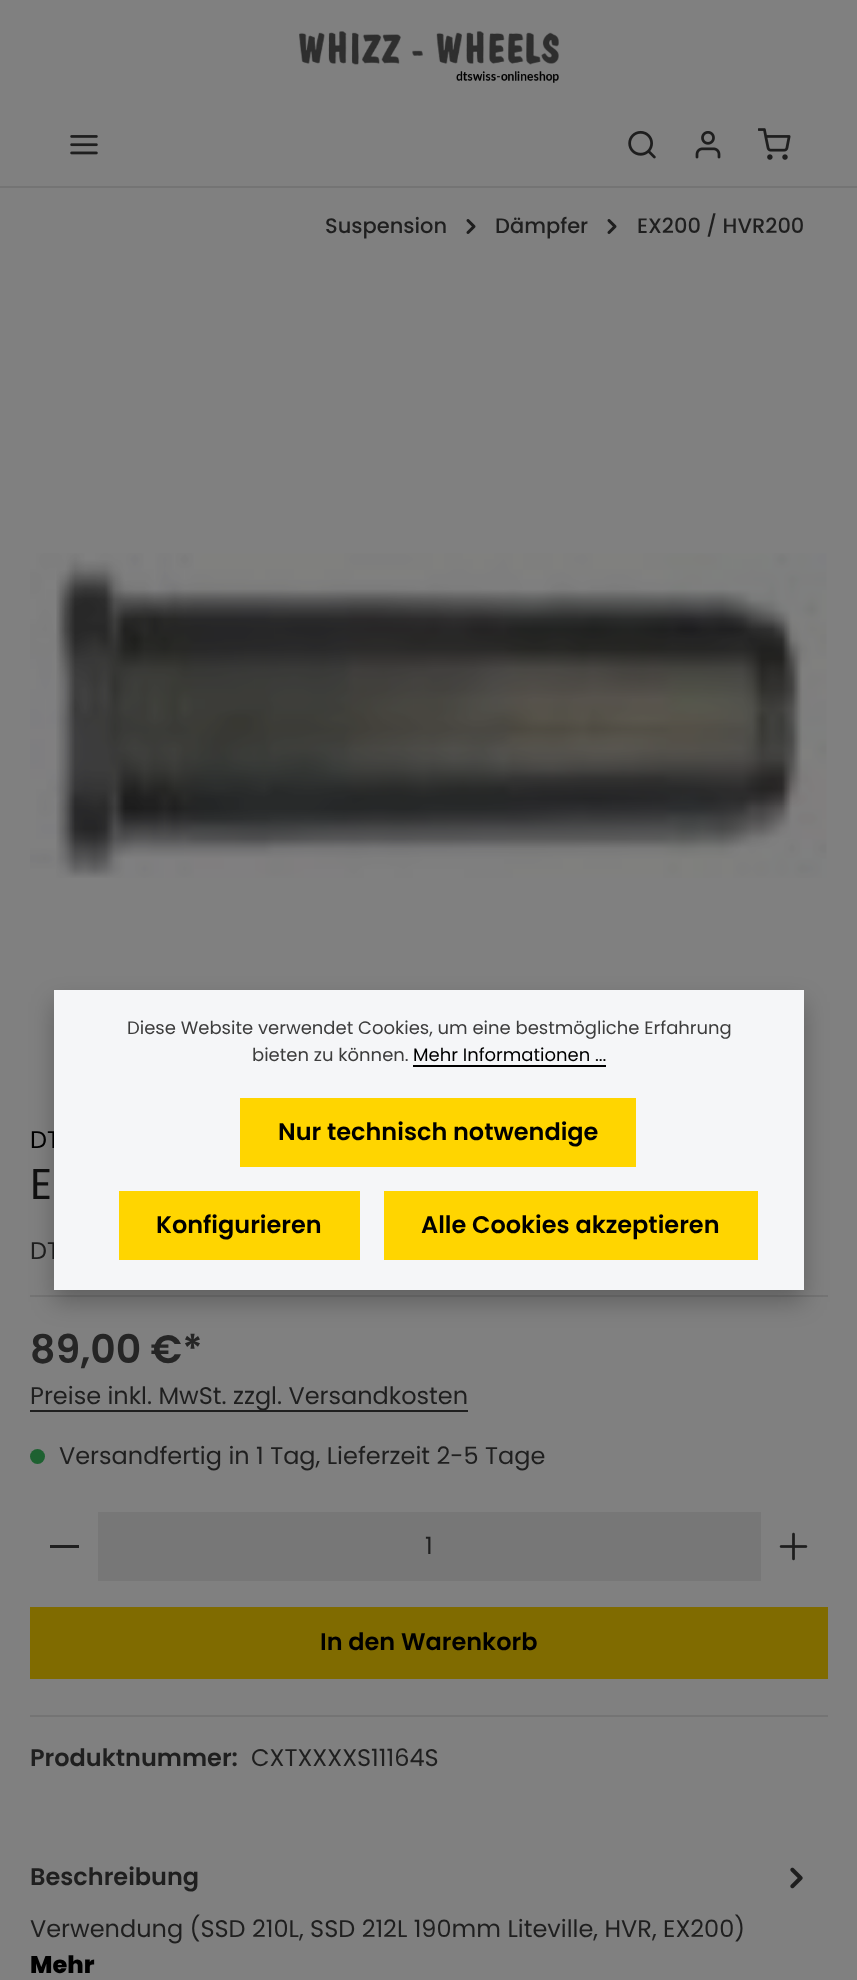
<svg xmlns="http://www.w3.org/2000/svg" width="857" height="1980">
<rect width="100%" height="100%" fill="#808080"/>
<rect y="186" width="857" height="2" fill="#747474"/>
<image x="299" y="31" width="260" height="52" href="media/1.png"/>
<image x="70" y="135" width="28" height="20" href="media/2.png"/>
<image x="628" y="130" width="28" height="29" href="media/3.png"/>
<image x="695" y="131" width="26" height="28" href="media/4.png"/>
<image x="758" y="128" width="33" height="32" href="media/5.png"/>
<text x="325" y="233" style="font-family:Poppins;font-size:21px;font-weight:500;fill:#1f1f1f">Suspension</text>
<image x="466" y="219" width="10" height="15" href="media/6.png"/>
<text x="495" y="233" style="font-family:Poppins;font-size:21px;font-weight:500;fill:#1f1f1f">Dämpfer</text>
<image x="607" y="219" width="10" height="15" href="media/6.png"/>
<text x="637" y="233" style="font-family:Poppins;font-size:21px;font-weight:500;fill:#1f1f1f">EX200 / HVR200</text>
<image x="30" y="553" width="797" height="325" href="media/7.png"/>
<text x="30" y="1148" style="font-family:Poppins;font-size:24px;fill:#000">DT</text>
<text x="30" y="1199" style="font-family:Poppins;font-size:43px;fill:#111">E</text>
<rect x="30" y="1295" width="798" height="2" fill="#747474"/>
<text x="30" y="1259" style="font-family:Poppins;font-size:24px;fill:#1f1f1f">DT</text>
<text x="30" y="1363" style="font-family:Poppins;font-size:39.5px;font-weight:600;fill:#252525">89,00 €*</text>
<rect x="30" y="1410" width="438" height="2" fill="#1f1f1f"/>
<text x="30" y="1404" style="font-family:Poppins;font-size:24px;fill:#1f1f1f">Preise inkl. MwSt. zzgl. Versandkosten</text>
<circle cx="37.5" cy="1456.5" r="7.5" fill="#1e6131"/>
<text x="59" y="1464" style="font-family:Poppins;font-size:24px;fill:#1f1f1f">Versandfertig in 1 Tag, Lieferzeit 2-5 Tage</text>
<rect x="50" y="1545" width="29" height="3" fill="#1f1f1f"/>
<rect x="98" y="1512" width="663" height="69" fill="#777"/>
<text x="425" y="1554" style="font-family:Poppins;font-size:24px;fill:#1f1f1f">1</text>
<image x="779" y="1532" width="29" height="29" href="media/8.png"/>
<rect x="30" y="1607" width="798" height="72" fill="#806b00"/>
<text x="320" y="1650" style="font-family:Poppins;font-size:24px;font-weight:600;fill:#000">In den Warenkorb</text>
<rect x="30" y="1715" width="798" height="2" fill="#747474"/>
<text x="30" y="1766" style="font-family:Poppins;font-size:24px;font-weight:600;fill:#1f1f1f">Produktnummer:</text>
<text x="251" y="1766" style="font-family:Poppins;font-size:24px;fill:#1f1f1f">CXTXXXXS11164S</text>
<text x="30" y="1885" style="font-family:Poppins;font-size:24px;font-weight:600;fill:#1f1f1f">Beschreibung</text>
<image x="790" y="1867" width="13" height="22" href="media/9.png"/>
<text x="30" y="1937" style="font-family:Poppins;font-size:24px;fill:#1f1f1f">Verwendung (SSD 210L, SSD 212L 190mm Liteville, HVR, EX200)</text>
<text x="30" y="1973" style="font-family:Poppins;font-size:24px;font-weight:800;fill:#000">Mehr</text>
<rect x="54" y="1002" width="750" height="300" fill="#00000040" filter="blur(12px)"/>
<rect x="54" y="990" width="750" height="300" fill="#f5f6f8"/>
<text x="127" y="1034" style="font-family:Poppins;font-size:18px;fill:#3d3d3d">Diese Website verwendet Cookies, um eine bestmögliche Erfahrung</text>
<text x="252" y="1061" style="font-family:Poppins;font-size:18px;fill:#3d3d3d">bieten zu können.</text>
<text x="413" y="1061" style="font-family:Poppins;font-size:18px;fill:#000">Mehr Informationen ...</text>
<rect x="413" y="1065" width="193" height="2" fill="#000"/>
<rect x="240" y="1098" width="396" height="69" fill="#ffd500"/>
<text x="278" y="1140" style="font-family:Poppins;font-size:24px;font-weight:600;fill:#000">Nur technisch notwendige</text>
<rect x="119" y="1191" width="241" height="69" fill="#ffd500"/>
<text x="156" y="1233" style="font-family:Poppins;font-size:24px;font-weight:600;fill:#000">Konfigurieren</text>
<rect x="384" y="1191" width="374" height="69" fill="#ffd500"/>
<text x="421" y="1233" style="font-family:Poppins;font-size:24px;font-weight:600;fill:#000">Alle Cookies akzeptieren</text>
</svg>
